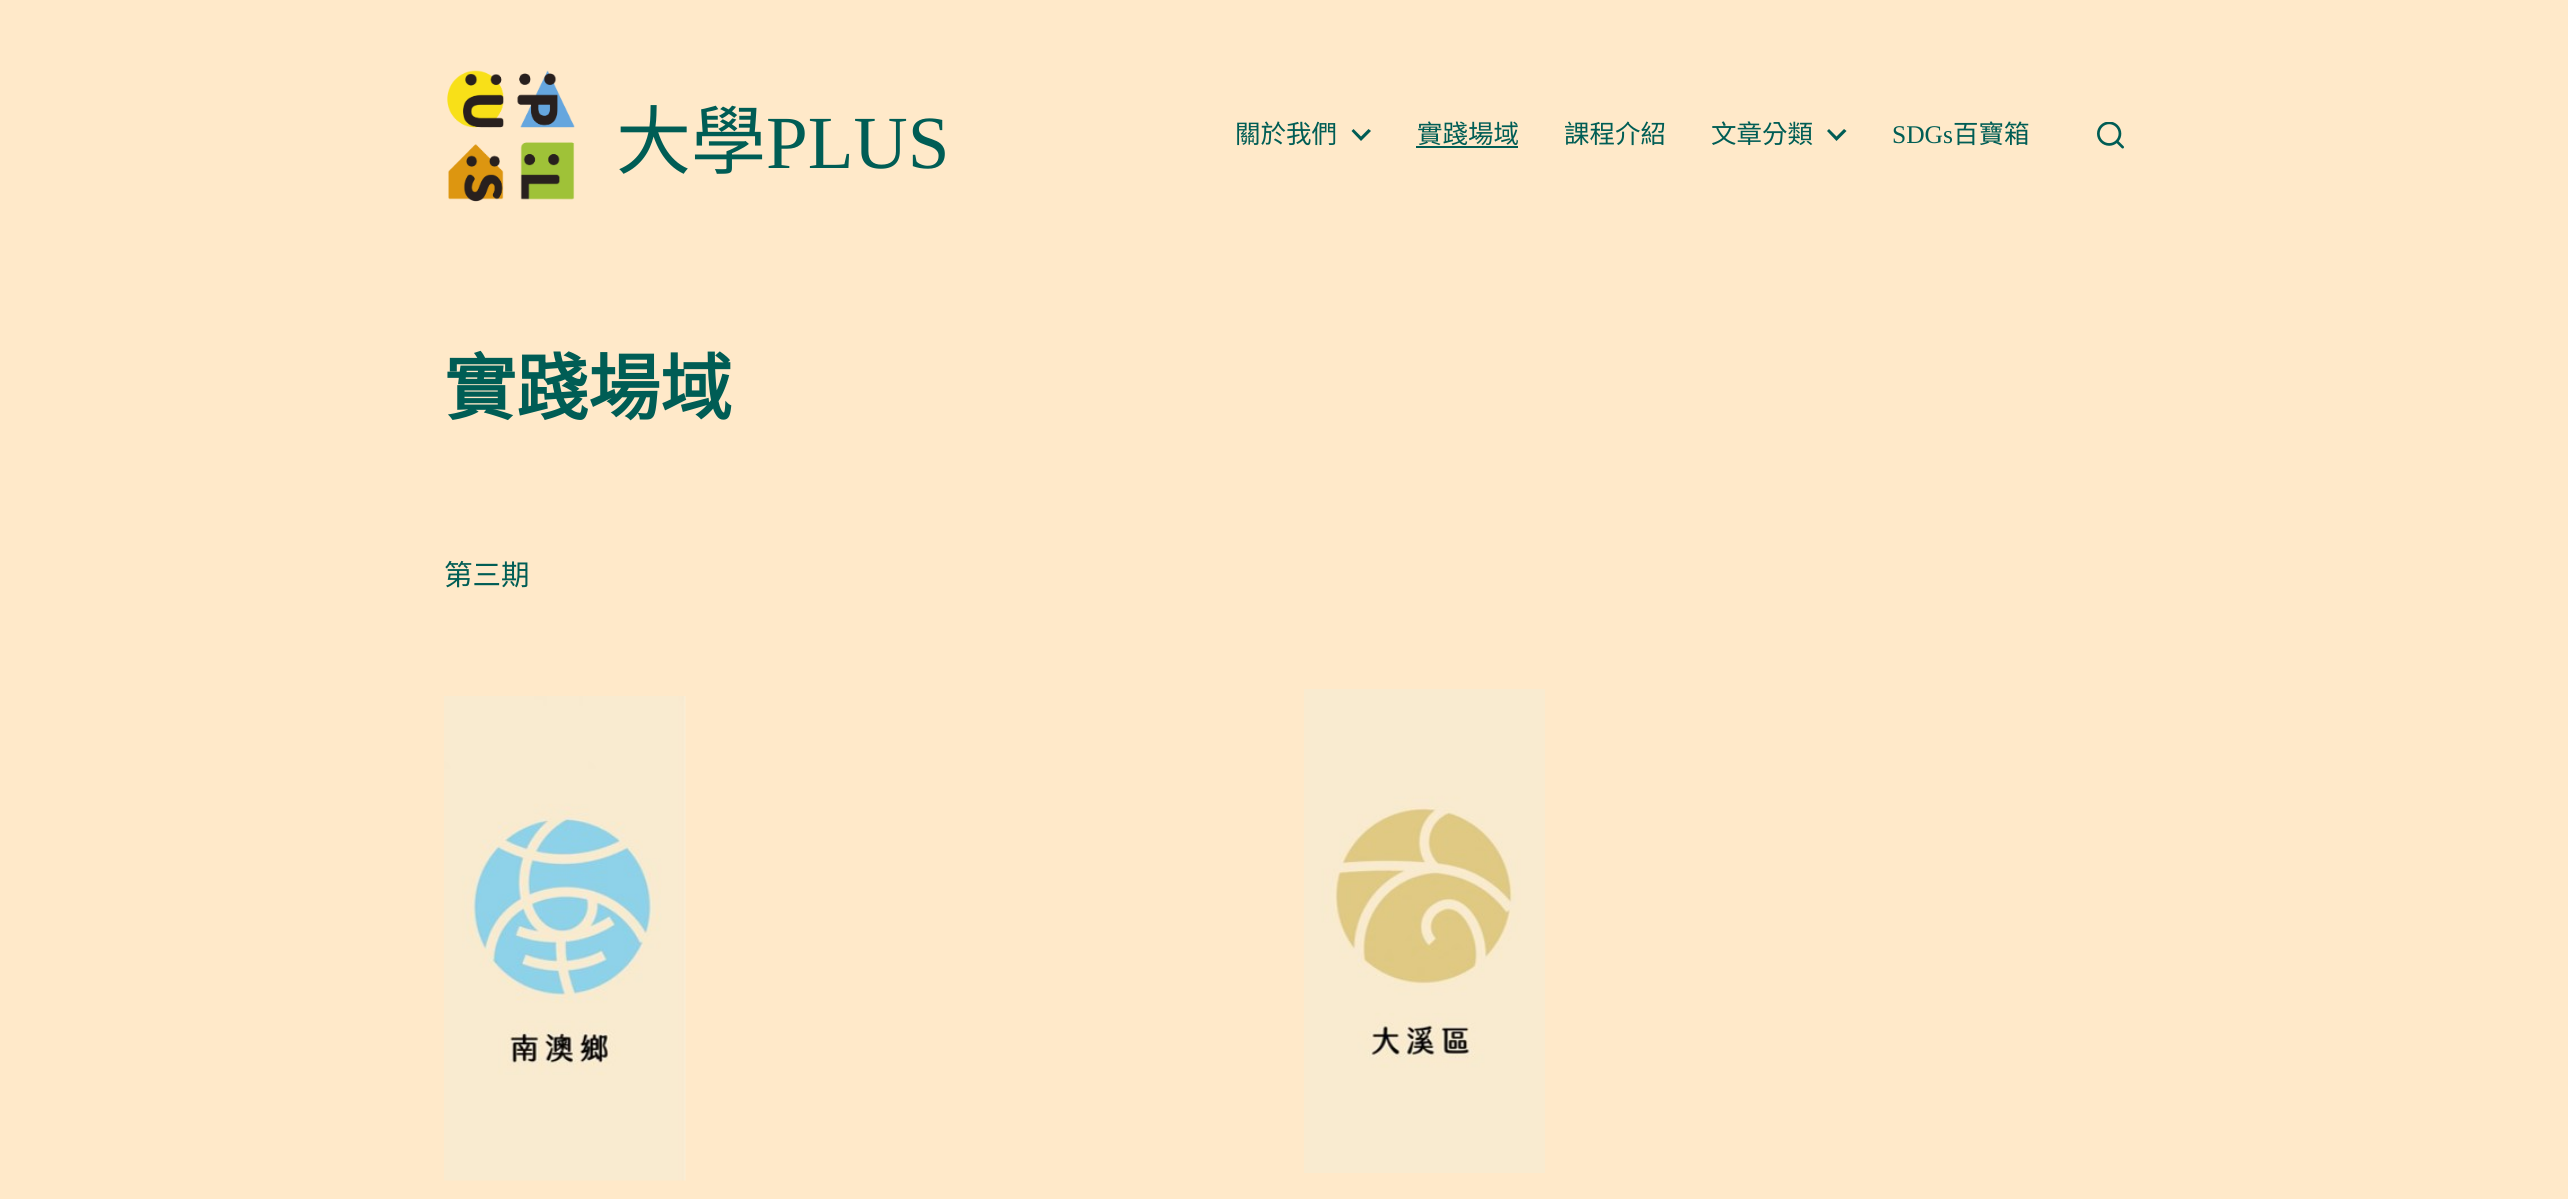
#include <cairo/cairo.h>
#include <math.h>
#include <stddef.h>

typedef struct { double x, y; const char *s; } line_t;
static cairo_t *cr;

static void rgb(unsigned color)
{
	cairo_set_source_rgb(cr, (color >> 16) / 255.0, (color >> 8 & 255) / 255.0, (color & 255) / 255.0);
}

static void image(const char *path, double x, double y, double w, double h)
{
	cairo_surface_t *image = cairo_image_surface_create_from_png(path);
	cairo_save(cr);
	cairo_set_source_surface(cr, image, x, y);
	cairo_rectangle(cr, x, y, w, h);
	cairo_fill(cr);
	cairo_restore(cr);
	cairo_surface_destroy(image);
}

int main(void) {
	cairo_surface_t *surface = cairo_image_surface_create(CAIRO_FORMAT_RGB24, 2568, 1199);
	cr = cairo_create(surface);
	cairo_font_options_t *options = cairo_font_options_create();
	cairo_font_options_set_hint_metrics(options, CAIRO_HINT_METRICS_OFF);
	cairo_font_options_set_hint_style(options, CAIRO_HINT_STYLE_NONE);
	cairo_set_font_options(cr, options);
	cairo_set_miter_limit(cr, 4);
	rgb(0xffe9c9);
	cairo_paint(cr);
	image("img/1.png", 447, 70, 128, 132);
	rgb(0x005d55);
	cairo_set_fill_rule(cr, CAIRO_FILL_RULE_EVEN_ODD);
	cairo_new_path(cr);
	cairo_move_to(cr, 1361, 136.5);
	cairo_line_to(cr, 1368.5, 129);
	cairo_line_to(cr, 1371, 131);
	cairo_line_to(cr, 1361, 141);
	cairo_line_to(cr, 1351.5, 131);
	cairo_line_to(cr, 1353.5, 129);
	cairo_close_path(cr);
	cairo_fill(cr);
	cairo_rectangle(cr, 1416, 146, 102, 2);
	cairo_fill(cr);
	cairo_new_path(cr);
	cairo_move_to(cr, 1836.5, 136.5);
	cairo_line_to(cr, 1844, 129);
	cairo_line_to(cr, 1846.5, 131);
	cairo_line_to(cr, 1836.5, 141);
	cairo_line_to(cr, 1827, 131);
	cairo_line_to(cr, 1829, 129);
	cairo_close_path(cr);
	cairo_fill(cr);
	image("img/2.png", 2097, 122, 27, 27);
	image("img/3.png", 444, 696, 242, 485);
	image("img/4.png", 1304, 689, 241, 484);
	cairo_select_font_face(cr, "Noto Sans CJK TC", CAIRO_FONT_SLANT_NORMAL, CAIRO_FONT_WEIGHT_NORMAL);
	cairo_set_font_size(cr, 75);
	cairo_move_to(cr, 616, 168);
	cairo_show_text(cr, "大學");
	cairo_select_font_face(cr, "Liberation Serif", CAIRO_FONT_SLANT_NORMAL, CAIRO_FONT_WEIGHT_NORMAL);
	cairo_move_to(cr, 766, 168);
	cairo_show_text(cr, "PLUS");
	cairo_select_font_face(cr, "Noto Sans CJK TC", CAIRO_FONT_SLANT_NORMAL, CAIRO_FONT_WEIGHT_NORMAL);
	cairo_set_font_size(cr, 25.5);
	{
		static const line_t items[] = {
			{1235, 143, "關於我們"},
			{1417, 143, "實踐場域"},
			{1564, 143, "課程介紹"},
			{1711, 143, "文章分類"},
		};
		for (size_t i = 0; i < sizeof items / sizeof *items; i++) {
			cairo_move_to(cr, items[i].x, items[i].y);
			cairo_show_text(cr, items[i].s);
		}
	}
	cairo_select_font_face(cr, "Liberation Serif", CAIRO_FONT_SLANT_NORMAL, CAIRO_FONT_WEIGHT_NORMAL);
	cairo_move_to(cr, 1892, 143);
	cairo_show_text(cr, "SDGs");
	cairo_select_font_face(cr, "Noto Sans CJK TC", CAIRO_FONT_SLANT_NORMAL, CAIRO_FONT_WEIGHT_NORMAL);
	cairo_move_to(cr, 1953, 143);
	cairo_show_text(cr, "百寶箱");
	cairo_select_font_face(cr, "Noto Sans CJK TC", CAIRO_FONT_SLANT_NORMAL, CAIRO_FONT_WEIGHT_BOLD);
	cairo_set_font_size(cr, 72);
	cairo_move_to(cr, 444, 414);
	cairo_show_text(cr, "實踐場域");
	cairo_select_font_face(cr, "Noto Sans CJK TC", CAIRO_FONT_SLANT_NORMAL, CAIRO_FONT_WEIGHT_NORMAL);
	cairo_set_font_size(cr, 28.5);
	cairo_move_to(cr, 444, 585);
	cairo_show_text(cr, "第三期");
	cairo_surface_write_to_png(surface, "page.png");
	cairo_font_options_destroy(options);
	cairo_destroy(cr);
	cairo_surface_destroy(surface);
	return 0;
}
